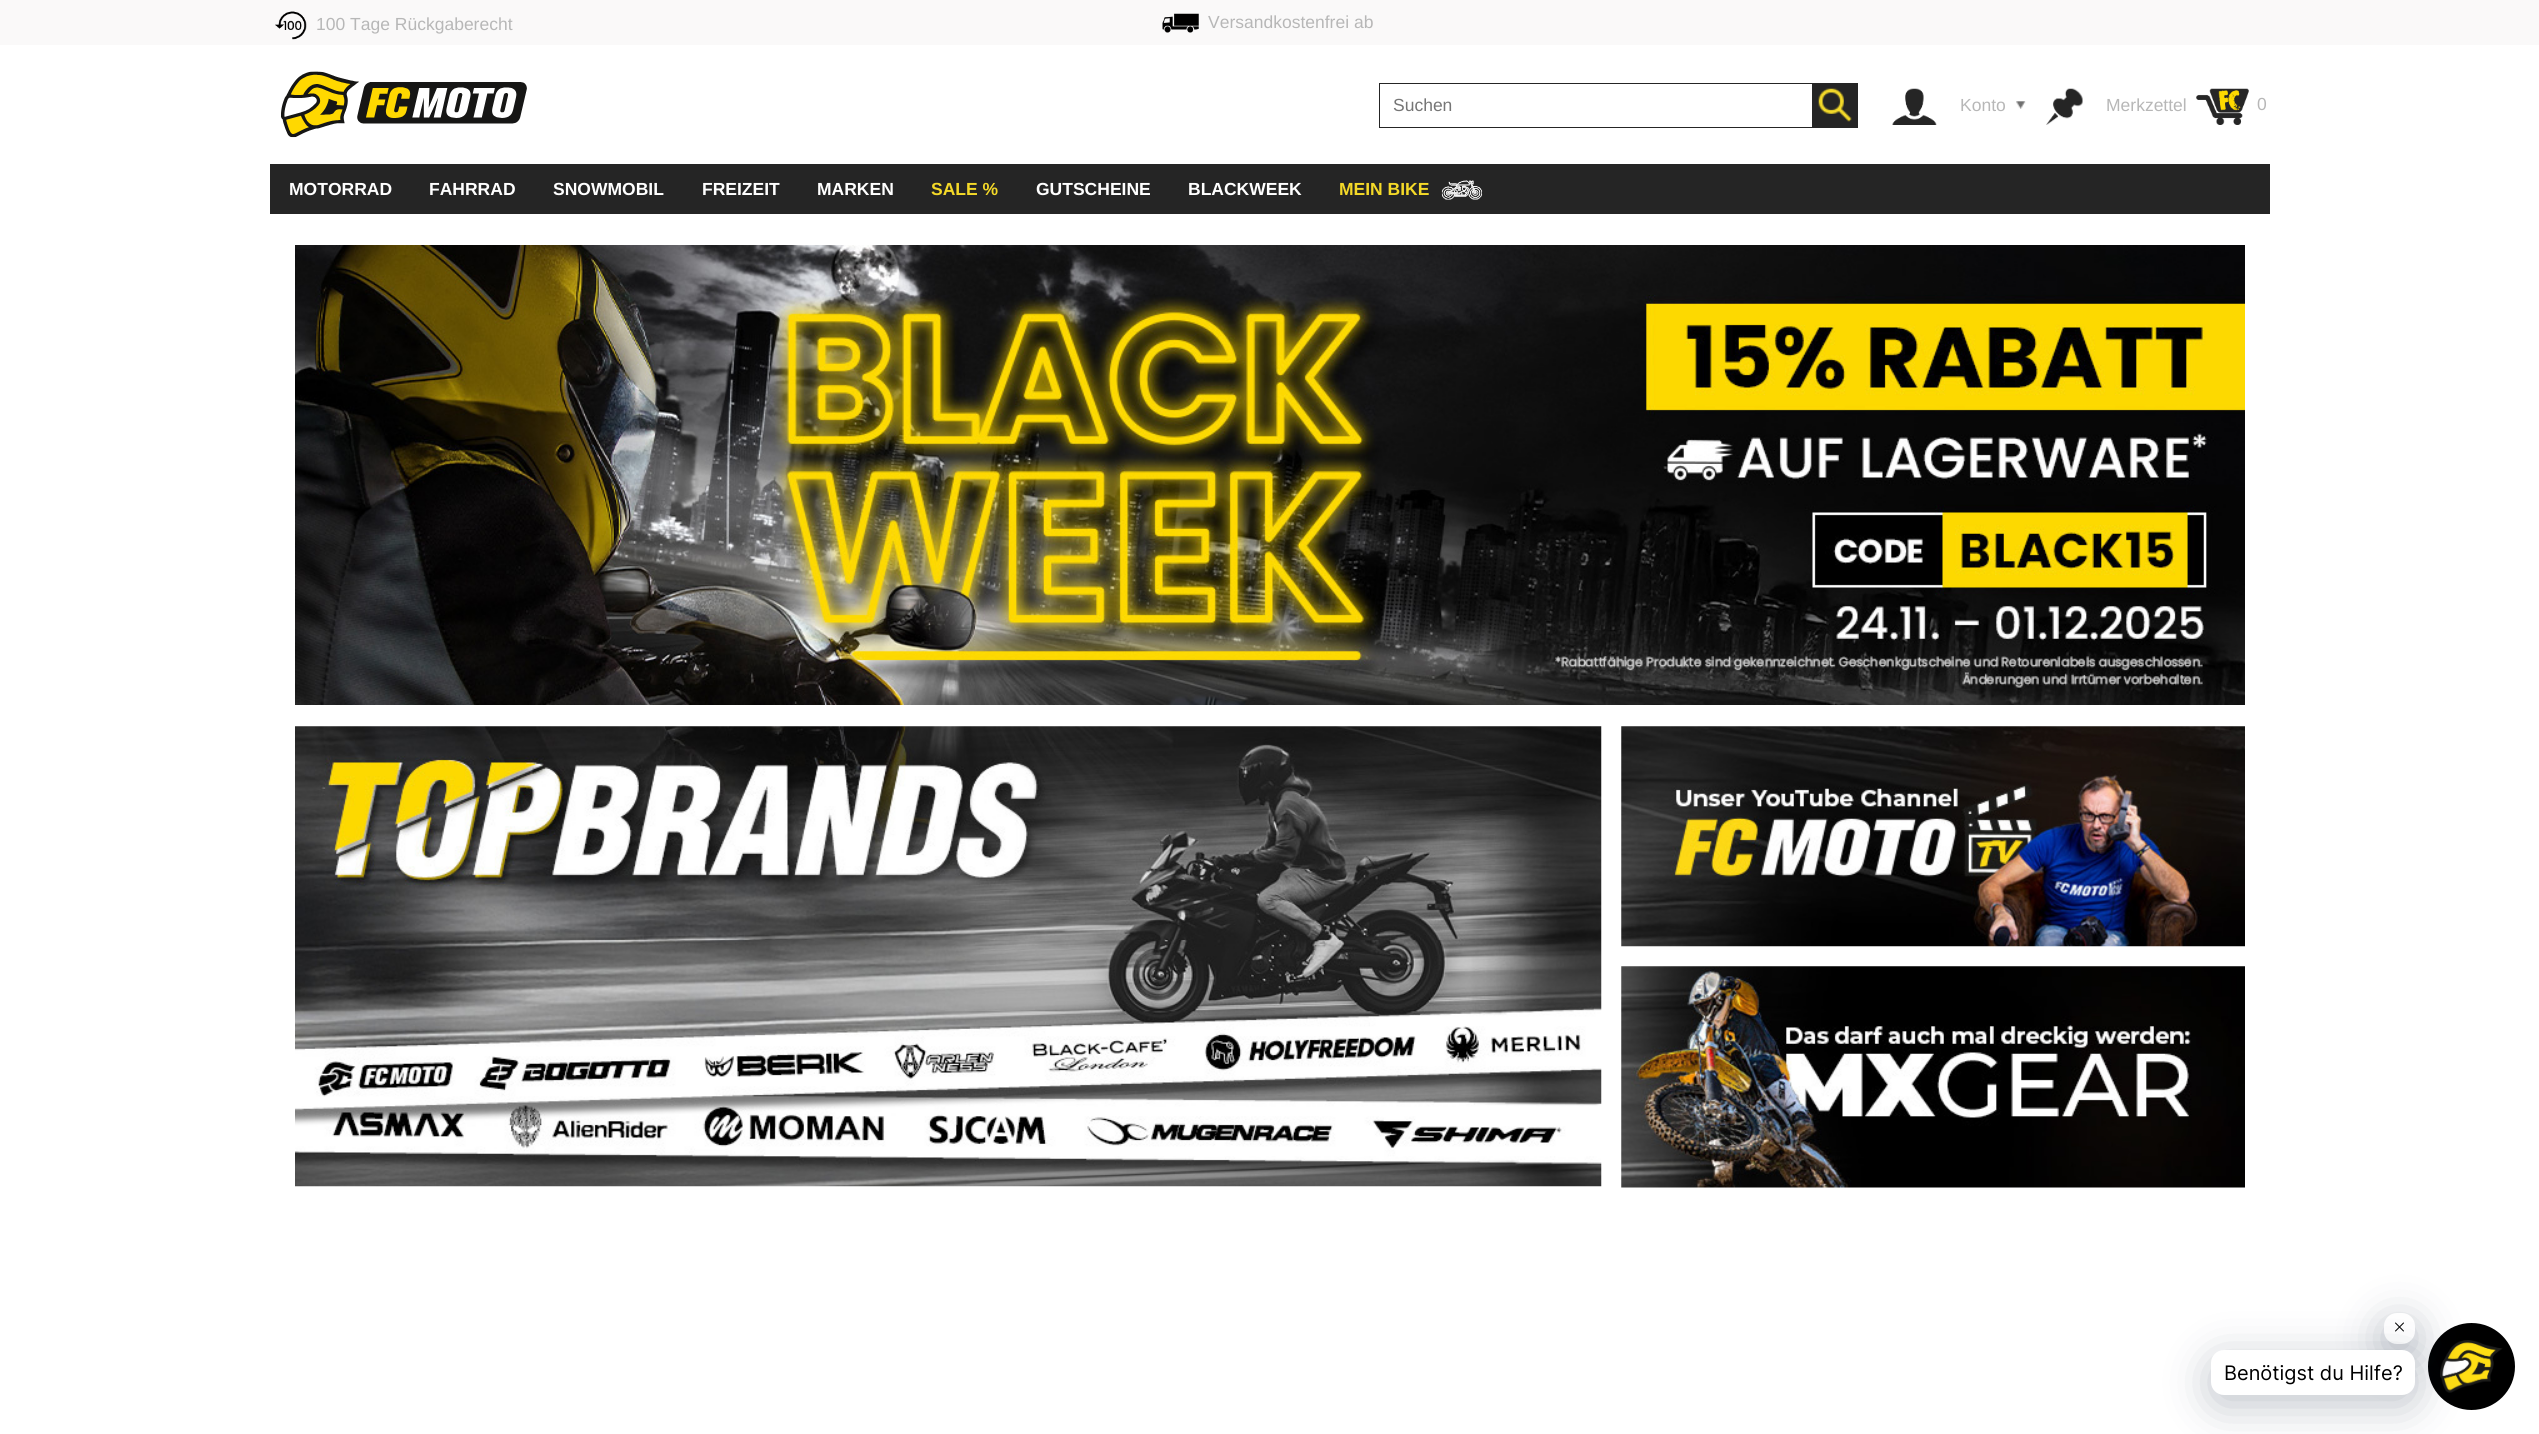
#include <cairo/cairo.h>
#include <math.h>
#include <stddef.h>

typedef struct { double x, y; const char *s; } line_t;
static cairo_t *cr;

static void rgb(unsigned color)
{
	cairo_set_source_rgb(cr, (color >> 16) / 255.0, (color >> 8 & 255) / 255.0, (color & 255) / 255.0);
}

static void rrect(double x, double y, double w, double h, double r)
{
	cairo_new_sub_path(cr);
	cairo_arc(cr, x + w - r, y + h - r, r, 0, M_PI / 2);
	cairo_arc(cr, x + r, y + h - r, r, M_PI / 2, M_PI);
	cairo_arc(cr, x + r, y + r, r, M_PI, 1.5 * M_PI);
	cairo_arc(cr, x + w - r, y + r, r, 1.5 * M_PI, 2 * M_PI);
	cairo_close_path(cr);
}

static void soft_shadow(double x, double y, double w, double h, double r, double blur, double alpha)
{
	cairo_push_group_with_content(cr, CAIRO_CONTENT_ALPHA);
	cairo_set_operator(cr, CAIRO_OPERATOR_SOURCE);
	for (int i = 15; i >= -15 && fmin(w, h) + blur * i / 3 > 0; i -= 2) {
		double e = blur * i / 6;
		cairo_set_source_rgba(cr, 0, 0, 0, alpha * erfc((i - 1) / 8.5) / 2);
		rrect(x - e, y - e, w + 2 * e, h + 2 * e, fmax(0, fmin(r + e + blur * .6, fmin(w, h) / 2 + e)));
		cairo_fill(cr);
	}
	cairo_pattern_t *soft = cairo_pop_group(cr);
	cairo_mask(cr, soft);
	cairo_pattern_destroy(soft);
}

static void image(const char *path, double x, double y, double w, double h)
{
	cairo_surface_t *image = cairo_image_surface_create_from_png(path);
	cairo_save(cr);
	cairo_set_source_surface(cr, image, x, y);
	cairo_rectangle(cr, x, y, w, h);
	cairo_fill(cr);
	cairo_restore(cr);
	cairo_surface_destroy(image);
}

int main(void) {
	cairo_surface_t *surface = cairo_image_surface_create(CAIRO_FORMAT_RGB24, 2539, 1434);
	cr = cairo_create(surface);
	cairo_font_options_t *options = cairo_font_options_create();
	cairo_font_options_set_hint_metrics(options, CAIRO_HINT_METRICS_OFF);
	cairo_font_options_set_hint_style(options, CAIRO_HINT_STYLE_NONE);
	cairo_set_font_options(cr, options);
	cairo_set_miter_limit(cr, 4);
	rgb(0xffffff);
	cairo_paint(cr);
	rgb(0xfaf9f9);
	cairo_rectangle(cr, 0, 0, 2539, 45);
	cairo_fill(cr);
	image("img/1.png", 275, 11, 32, 29);
	image("img/2.png", 1162, 13, 37, 20);
	image("img/3.png", 281, 71, 246, 67);
	cairo_rectangle(cr, 1379.5, 83.5, 433, 44);
	rgb(0x252525);
	cairo_set_line_width(cr, 1);
	cairo_stroke(cr);
	cairo_rectangle(cr, 1813, 83, 45, 45);
	cairo_fill(cr);
	image("img/4.png", 1818, 88, 34, 34);
	image("img/5.png", 1892, 88, 45, 37);
	image("img/6.png", 2016, 101, 10, 8);
	image("img/7.png", 2046, 88, 37, 37);
	image("img/8.png", 2196, 88, 53, 37);
	cairo_rectangle(cr, 270, 164, 2000, 50);
	cairo_fill(cr);
	image("img/9.png", 1441, 180, 42, 20);
	image("img/10.png", 295, 245, 1950, 460);
	image("img/11.png", 295, 726, 1307, 461);
	image("img/12.png", 1621, 726, 624, 221);
	image("img/13.png", 1621, 966, 624, 222);
	rgb(0x000000);
	cairo_arc(cr, 2471.5, 1366.5, 43.5, 0, 2 * M_PI);
	cairo_fill(cr);
	image("img/14.png", 2440, 1340, 63, 53);
	rgb(0x00122e);
	soft_shadow(2384, 1323, 31, 31, 13, 22.5, 0.25);
	rgb(0xffffff);
	rrect(2384, 1313, 31, 31, 13);
	cairo_fill(cr);
	cairo_new_path(cr);
	cairo_move_to(cr, 2395.5, 1331);
	cairo_line_to(cr, 2403.5, 1323);
	cairo_move_to(cr, 2395.5, 1323);
	cairo_line_to(cr, 2403.5, 1331);
	rgb(0x000000);
	cairo_set_line_cap(cr, CAIRO_LINE_CAP_ROUND);
	cairo_set_line_join(cr, CAIRO_LINE_JOIN_ROUND);
	cairo_stroke(cr);
	rgb(0x00122e);
	soft_shadow(2211, 1360, 204, 45, 13, 22.5, 0.25);
	rgb(0xffffff);
	rrect(2211, 1350, 204, 45, 13);
	cairo_fill(cr);
	cairo_select_font_face(cr, "Liberation Sans", CAIRO_FONT_SLANT_NORMAL, CAIRO_FONT_WEIGHT_NORMAL);
	cairo_set_font_size(cr, 17.5);
	rgb(0xb7b7b7);
	cairo_move_to(cr, 316, 30);
	cairo_show_text(cr, "100 Tage Rückgaberecht");
	cairo_move_to(cr, 1208, 28);
	cairo_show_text(cr, "Versandkostenfrei ab");
	rgb(0x757575);
	cairo_move_to(cr, 1393, 111);
	cairo_show_text(cr, "Suchen");
	rgb(0xb7b7b7);
	{
		static const line_t items[] = {
			{1960, 111, "Konto"},
			{2106, 111, "Merkzettel"},
			{2257, 110, "0"},
		};
		for (size_t i = 0; i < sizeof items / sizeof *items; i++) {
			cairo_move_to(cr, items[i].x, items[i].y);
			cairo_show_text(cr, items[i].s);
		}
	}
	cairo_select_font_face(cr, "Liberation Sans", CAIRO_FONT_SLANT_NORMAL, CAIRO_FONT_WEIGHT_BOLD);
	rgb(0xffffff);
	{
		static const line_t items[] = {
			{289, 195, "MOTORRAD"},
			{429, 195, "FAHRRAD"},
			{553, 195, "SNOWMOBIL"},
			{702, 195, "FREIZEIT"},
			{817, 195, "MARKEN"},
		};
		for (size_t i = 0; i < sizeof items / sizeof *items; i++) {
			cairo_move_to(cr, items[i].x, items[i].y);
			cairo_show_text(cr, items[i].s);
		}
	}
	rgb(0xf4d928);
	cairo_move_to(cr, 931, 195);
	cairo_show_text(cr, "SALE %");
	rgb(0xffffff);
	cairo_move_to(cr, 1036, 195);
	cairo_show_text(cr, "GUTSCHEINE");
	cairo_move_to(cr, 1188, 195);
	cairo_show_text(cr, "BLACKWEEK");
	rgb(0xf4d928);
	cairo_move_to(cr, 1339, 195);
	cairo_show_text(cr, "MEIN BIKE");
	cairo_select_font_face(cr, "Inter", CAIRO_FONT_SLANT_NORMAL, CAIRO_FONT_WEIGHT_NORMAL);
	cairo_set_font_size(cr, 20);
	rgb(0x000000);
	cairo_move_to(cr, 2224, 1380);
	cairo_show_text(cr, "Benötigst du Hilfe?");
	cairo_surface_write_to_png(surface, "page.png");
	cairo_font_options_destroy(options);
	cairo_destroy(cr);
	cairo_surface_destroy(surface);
	return 0;
}
